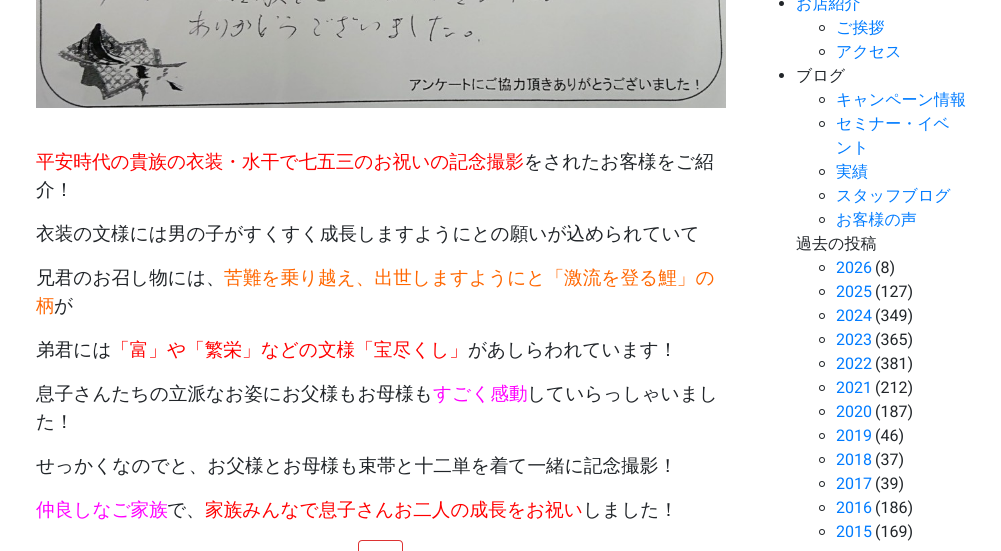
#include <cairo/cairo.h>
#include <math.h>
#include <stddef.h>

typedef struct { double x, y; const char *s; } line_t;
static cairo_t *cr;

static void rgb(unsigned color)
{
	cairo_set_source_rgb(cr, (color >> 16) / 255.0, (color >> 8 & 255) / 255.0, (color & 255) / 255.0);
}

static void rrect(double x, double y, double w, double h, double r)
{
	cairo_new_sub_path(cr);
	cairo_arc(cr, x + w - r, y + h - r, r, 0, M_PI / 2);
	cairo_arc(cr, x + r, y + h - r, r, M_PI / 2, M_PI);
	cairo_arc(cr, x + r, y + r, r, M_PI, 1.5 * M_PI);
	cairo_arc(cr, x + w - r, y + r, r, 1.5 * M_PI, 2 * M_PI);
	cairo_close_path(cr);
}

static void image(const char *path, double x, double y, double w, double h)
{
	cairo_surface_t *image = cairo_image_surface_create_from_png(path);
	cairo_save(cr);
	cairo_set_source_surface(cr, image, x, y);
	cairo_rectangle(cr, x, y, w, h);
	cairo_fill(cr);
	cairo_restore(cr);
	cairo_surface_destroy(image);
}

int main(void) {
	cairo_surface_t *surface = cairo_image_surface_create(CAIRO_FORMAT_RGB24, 1001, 551);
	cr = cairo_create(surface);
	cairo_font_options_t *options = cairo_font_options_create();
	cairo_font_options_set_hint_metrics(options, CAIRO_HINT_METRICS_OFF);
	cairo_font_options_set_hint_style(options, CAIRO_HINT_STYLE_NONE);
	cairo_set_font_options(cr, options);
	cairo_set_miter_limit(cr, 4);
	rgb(0xffffff);
	cairo_paint(cr);
	image("img/1.png", 36, 0, 690, 108);
	rrect(358.5, 540.5, 44, 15, 3.5);
	rgb(0xdd3333);
	cairo_set_line_width(cr, 1);
	cairo_stroke(cr);
	rgb(0x212529);
	cairo_arc(cr, 781.5, 3.5, 2.5, 0, 2 * M_PI);
	cairo_fill(cr);
	cairo_arc(cr, 822, 28, 2.5, 0, 2 * M_PI);
	cairo_stroke(cr);
	cairo_arc(cr, 822, 52, 2.5, 0, 2 * M_PI);
	cairo_stroke(cr);
	cairo_arc(cr, 781.5, 75.5, 2.5, 0, 2 * M_PI);
	cairo_fill(cr);
	cairo_arc(cr, 822, 100, 2.5, 0, 2 * M_PI);
	cairo_stroke(cr);
	cairo_arc(cr, 822, 124, 2.5, 0, 2 * M_PI);
	cairo_stroke(cr);
	cairo_arc(cr, 822, 172, 2.5, 0, 2 * M_PI);
	cairo_stroke(cr);
	cairo_arc(cr, 822, 196, 2.5, 0, 2 * M_PI);
	cairo_stroke(cr);
	cairo_arc(cr, 822, 220, 2.5, 0, 2 * M_PI);
	cairo_stroke(cr);
	cairo_arc(cr, 822, 268, 2.5, 0, 2 * M_PI);
	cairo_stroke(cr);
	cairo_arc(cr, 822, 292, 2.5, 0, 2 * M_PI);
	cairo_stroke(cr);
	cairo_arc(cr, 822, 316, 2.5, 0, 2 * M_PI);
	cairo_stroke(cr);
	cairo_arc(cr, 822, 340, 2.5, 0, 2 * M_PI);
	cairo_stroke(cr);
	cairo_arc(cr, 822, 364, 2.5, 0, 2 * M_PI);
	cairo_stroke(cr);
	cairo_arc(cr, 822, 388, 2.5, 0, 2 * M_PI);
	cairo_stroke(cr);
	cairo_arc(cr, 822, 412, 2.5, 0, 2 * M_PI);
	cairo_stroke(cr);
	cairo_arc(cr, 822, 436, 2.5, 0, 2 * M_PI);
	cairo_stroke(cr);
	cairo_arc(cr, 822, 460, 2.5, 0, 2 * M_PI);
	cairo_stroke(cr);
	cairo_arc(cr, 822, 484, 2.5, 0, 2 * M_PI);
	cairo_stroke(cr);
	cairo_arc(cr, 822, 508, 2.5, 0, 2 * M_PI);
	cairo_stroke(cr);
	cairo_arc(cr, 822, 532, 2.5, 0, 2 * M_PI);
	cairo_stroke(cr);
	cairo_select_font_face(cr, "WenQuanYi Zen Hei Medium", CAIRO_FONT_SLANT_NORMAL, CAIRO_FONT_WEIGHT_NORMAL);
	cairo_set_font_size(cr, 18.65);
	rgb(0xff0000);
	cairo_move_to(cr, 36, 168);
	cairo_show_text(cr, "平安時代の貴族の衣装・水干で七五三のお祝いの記念撮影");
	rgb(0x212529);
	{
		static const line_t items[] = {
			{524, 168, "をされたお客様をご紹"},
			{36, 196, "介！"},
			{36, 240, "衣装の文様には男の子がすくすく成長しますようにとの願いが込められていて"},
			{36, 284, "兄君のお召し物には、"},
		};
		for (size_t i = 0; i < sizeof items / sizeof *items; i++) {
			cairo_move_to(cr, items[i].x, items[i].y);
			cairo_show_text(cr, items[i].s);
		}
	}
	rgb(0xff6600);
	cairo_move_to(cr, 224, 284);
	cairo_show_text(cr, "苦難を乗り越え、出世しますようにと「激流を登る鯉」の");
	cairo_move_to(cr, 36, 312);
	cairo_show_text(cr, "柄");
	rgb(0x212529);
	cairo_move_to(cr, 54, 312);
	cairo_show_text(cr, "が");
	cairo_move_to(cr, 36, 356);
	cairo_show_text(cr, "弟君には");
	rgb(0xff0000);
	cairo_move_to(cr, 111, 356);
	cairo_show_text(cr, "「富」や「繁栄」などの文様「宝尽くし」");
	rgb(0x212529);
	cairo_move_to(cr, 468, 356);
	cairo_show_text(cr, "があしらわれています！");
	cairo_move_to(cr, 36, 400);
	cairo_show_text(cr, "息子さんたちの立派なお姿にお父様もお母様も");
	rgb(0xff00ff);
	cairo_move_to(cr, 433, 400);
	cairo_show_text(cr, "すごく感動");
	rgb(0x212529);
	{
		static const line_t items[] = {
			{527, 400, "していらっしゃいまし"},
			{36, 428, "た！"},
			{36, 472, "せっかくなのでと、お父様とお母様も束帯と十二単を着て一緒に記念撮影！"},
		};
		for (size_t i = 0; i < sizeof items / sizeof *items; i++) {
			cairo_move_to(cr, items[i].x, items[i].y);
			cairo_show_text(cr, items[i].s);
		}
	}
	rgb(0xff00ff);
	cairo_move_to(cr, 36, 516);
	cairo_show_text(cr, "仲良しなご家族");
	rgb(0x212529);
	cairo_move_to(cr, 167, 516);
	cairo_show_text(cr, "で、");
	rgb(0xff0000);
	cairo_move_to(cr, 205, 516);
	cairo_show_text(cr, "家族みんなで息子さんお二人の成長をお祝い");
	rgb(0x212529);
	cairo_move_to(cr, 583, 516);
	cairo_show_text(cr, "しました！");
	cairo_set_font_size(cr, 16);
	rgb(0x007bff);
	{
		static const line_t items[] = {
			{796, 9, "お店紹介"},
			{836, 33, "ご挨拶"},
			{836, 57, "アクセス"},
		};
		for (size_t i = 0; i < sizeof items / sizeof *items; i++) {
			cairo_move_to(cr, items[i].x, items[i].y);
			cairo_show_text(cr, items[i].s);
		}
	}
	rgb(0x212529);
	cairo_move_to(cr, 796, 81);
	cairo_show_text(cr, "ブログ");
	rgb(0x007bff);
	{
		static const line_t items[] = {
			{836, 105, "キャンペーン情報"},
			{836, 129, "セミナー・イベ"},
			{836, 153, "ント"},
			{836, 177, "実績"},
			{836, 201, "スタッフブログ"},
			{836, 225, "お客様の声"},
		};
		for (size_t i = 0; i < sizeof items / sizeof *items; i++) {
			cairo_move_to(cr, items[i].x, items[i].y);
			cairo_show_text(cr, items[i].s);
		}
	}
	rgb(0x212529);
	cairo_move_to(cr, 796, 249);
	cairo_show_text(cr, "過去の投稿");
	cairo_select_font_face(cr, "Roboto", CAIRO_FONT_SLANT_NORMAL, CAIRO_FONT_WEIGHT_NORMAL);
	rgb(0x007bff);
	cairo_move_to(cr, 836, 273);
	cairo_show_text(cr, "2026");
	rgb(0x212529);
	cairo_move_to(cr, 875, 273);
	cairo_show_text(cr, "(8)");
	rgb(0x007bff);
	cairo_move_to(cr, 836, 297);
	cairo_show_text(cr, "2025");
	rgb(0x212529);
	cairo_move_to(cr, 875, 297);
	cairo_show_text(cr, "(127)");
	rgb(0x007bff);
	cairo_move_to(cr, 836, 321);
	cairo_show_text(cr, "2024");
	rgb(0x212529);
	cairo_move_to(cr, 875, 321);
	cairo_show_text(cr, "(349)");
	rgb(0x007bff);
	cairo_move_to(cr, 836, 345);
	cairo_show_text(cr, "2023");
	rgb(0x212529);
	cairo_move_to(cr, 875, 345);
	cairo_show_text(cr, "(365)");
	rgb(0x007bff);
	cairo_move_to(cr, 836, 369);
	cairo_show_text(cr, "2022");
	rgb(0x212529);
	cairo_move_to(cr, 875, 369);
	cairo_show_text(cr, "(381)");
	rgb(0x007bff);
	cairo_move_to(cr, 836, 393);
	cairo_show_text(cr, "2021");
	rgb(0x212529);
	cairo_move_to(cr, 875, 393);
	cairo_show_text(cr, "(212)");
	rgb(0x007bff);
	cairo_move_to(cr, 836, 417);
	cairo_show_text(cr, "2020");
	rgb(0x212529);
	cairo_move_to(cr, 875, 417);
	cairo_show_text(cr, "(187)");
	rgb(0x007bff);
	cairo_move_to(cr, 836, 441);
	cairo_show_text(cr, "2019");
	rgb(0x212529);
	cairo_move_to(cr, 875, 441);
	cairo_show_text(cr, "(46)");
	rgb(0x007bff);
	cairo_move_to(cr, 836, 465);
	cairo_show_text(cr, "2018");
	rgb(0x212529);
	cairo_move_to(cr, 875, 465);
	cairo_show_text(cr, "(37)");
	rgb(0x007bff);
	cairo_move_to(cr, 836, 489);
	cairo_show_text(cr, "2017");
	rgb(0x212529);
	cairo_move_to(cr, 875, 489);
	cairo_show_text(cr, "(39)");
	rgb(0x007bff);
	cairo_move_to(cr, 836, 513);
	cairo_show_text(cr, "2016");
	rgb(0x212529);
	cairo_move_to(cr, 875, 513);
	cairo_show_text(cr, "(186)");
	rgb(0x007bff);
	cairo_move_to(cr, 836, 537);
	cairo_show_text(cr, "2015");
	rgb(0x212529);
	cairo_move_to(cr, 875, 537);
	cairo_show_text(cr, "(169)");
	cairo_surface_write_to_png(surface, "page.png");
	cairo_font_options_destroy(options);
	cairo_destroy(cr);
	cairo_surface_destroy(surface);
	return 0;
}
